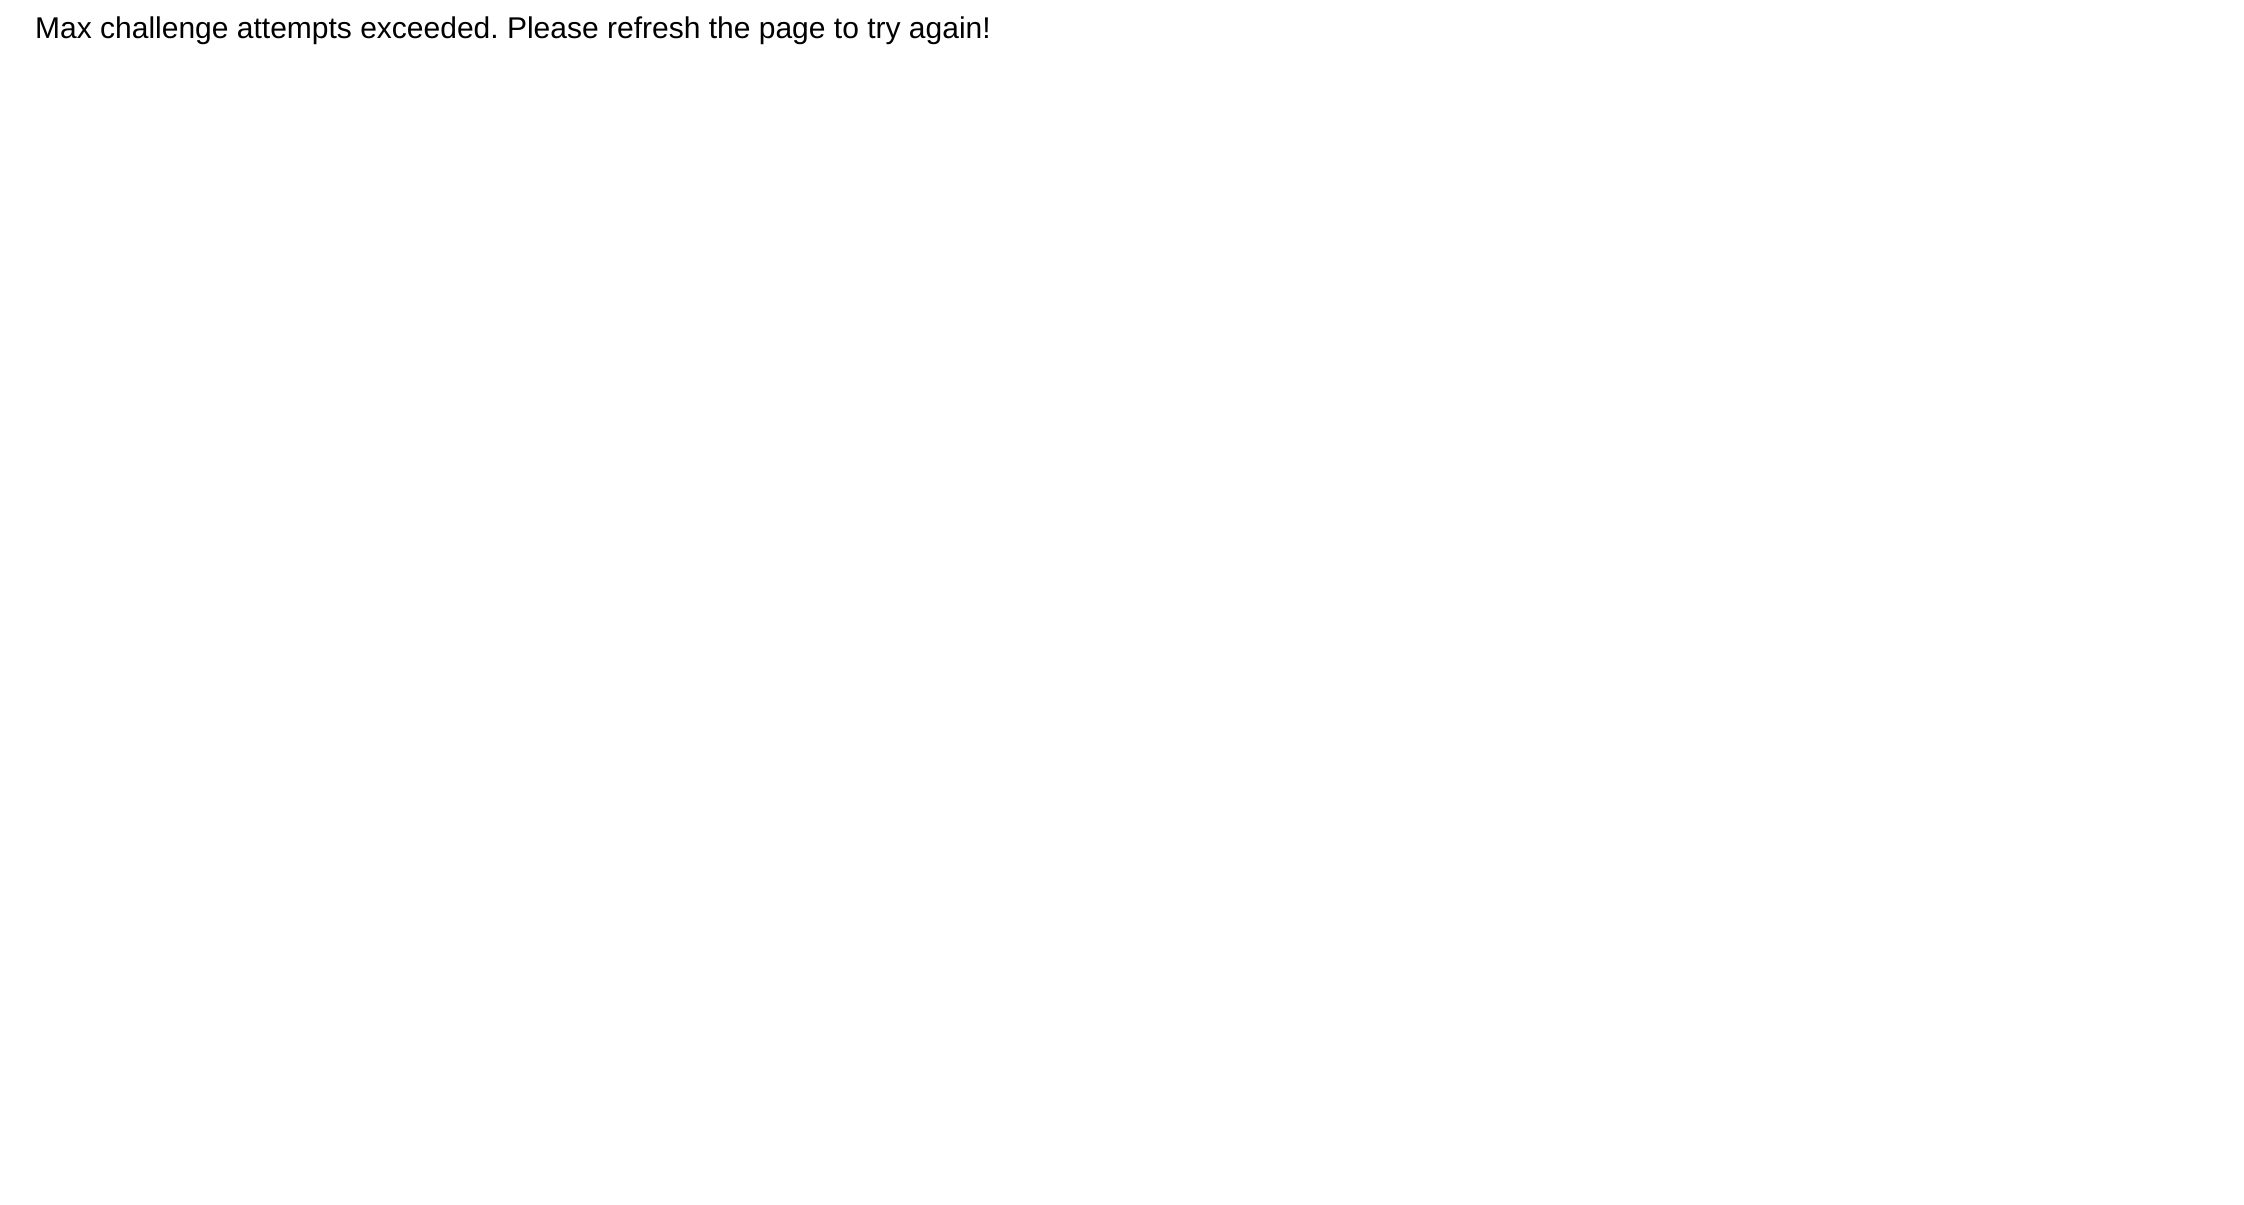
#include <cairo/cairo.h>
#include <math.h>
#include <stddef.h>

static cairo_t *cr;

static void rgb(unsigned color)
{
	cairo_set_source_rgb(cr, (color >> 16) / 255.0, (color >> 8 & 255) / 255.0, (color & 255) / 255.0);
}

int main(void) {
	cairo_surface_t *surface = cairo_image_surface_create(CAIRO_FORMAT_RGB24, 2244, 1205);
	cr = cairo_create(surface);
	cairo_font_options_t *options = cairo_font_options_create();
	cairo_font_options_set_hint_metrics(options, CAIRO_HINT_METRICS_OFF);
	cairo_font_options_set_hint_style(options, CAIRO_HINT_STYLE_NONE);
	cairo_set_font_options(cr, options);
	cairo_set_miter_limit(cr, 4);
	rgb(0xffffff);
	cairo_paint(cr);
	cairo_select_font_face(cr, "Liberation Sans", CAIRO_FONT_SLANT_NORMAL, CAIRO_FONT_WEIGHT_NORMAL);
	cairo_set_font_size(cr, 30);
	rgb(0x000000);
	cairo_move_to(cr, 35, 38);
	cairo_show_text(cr, "Max challenge attempts exceeded. Please refresh the page to try again!");
	cairo_surface_write_to_png(surface, "page.png");
	cairo_font_options_destroy(options);
	cairo_destroy(cr);
	cairo_surface_destroy(surface);
	return 0;
}
